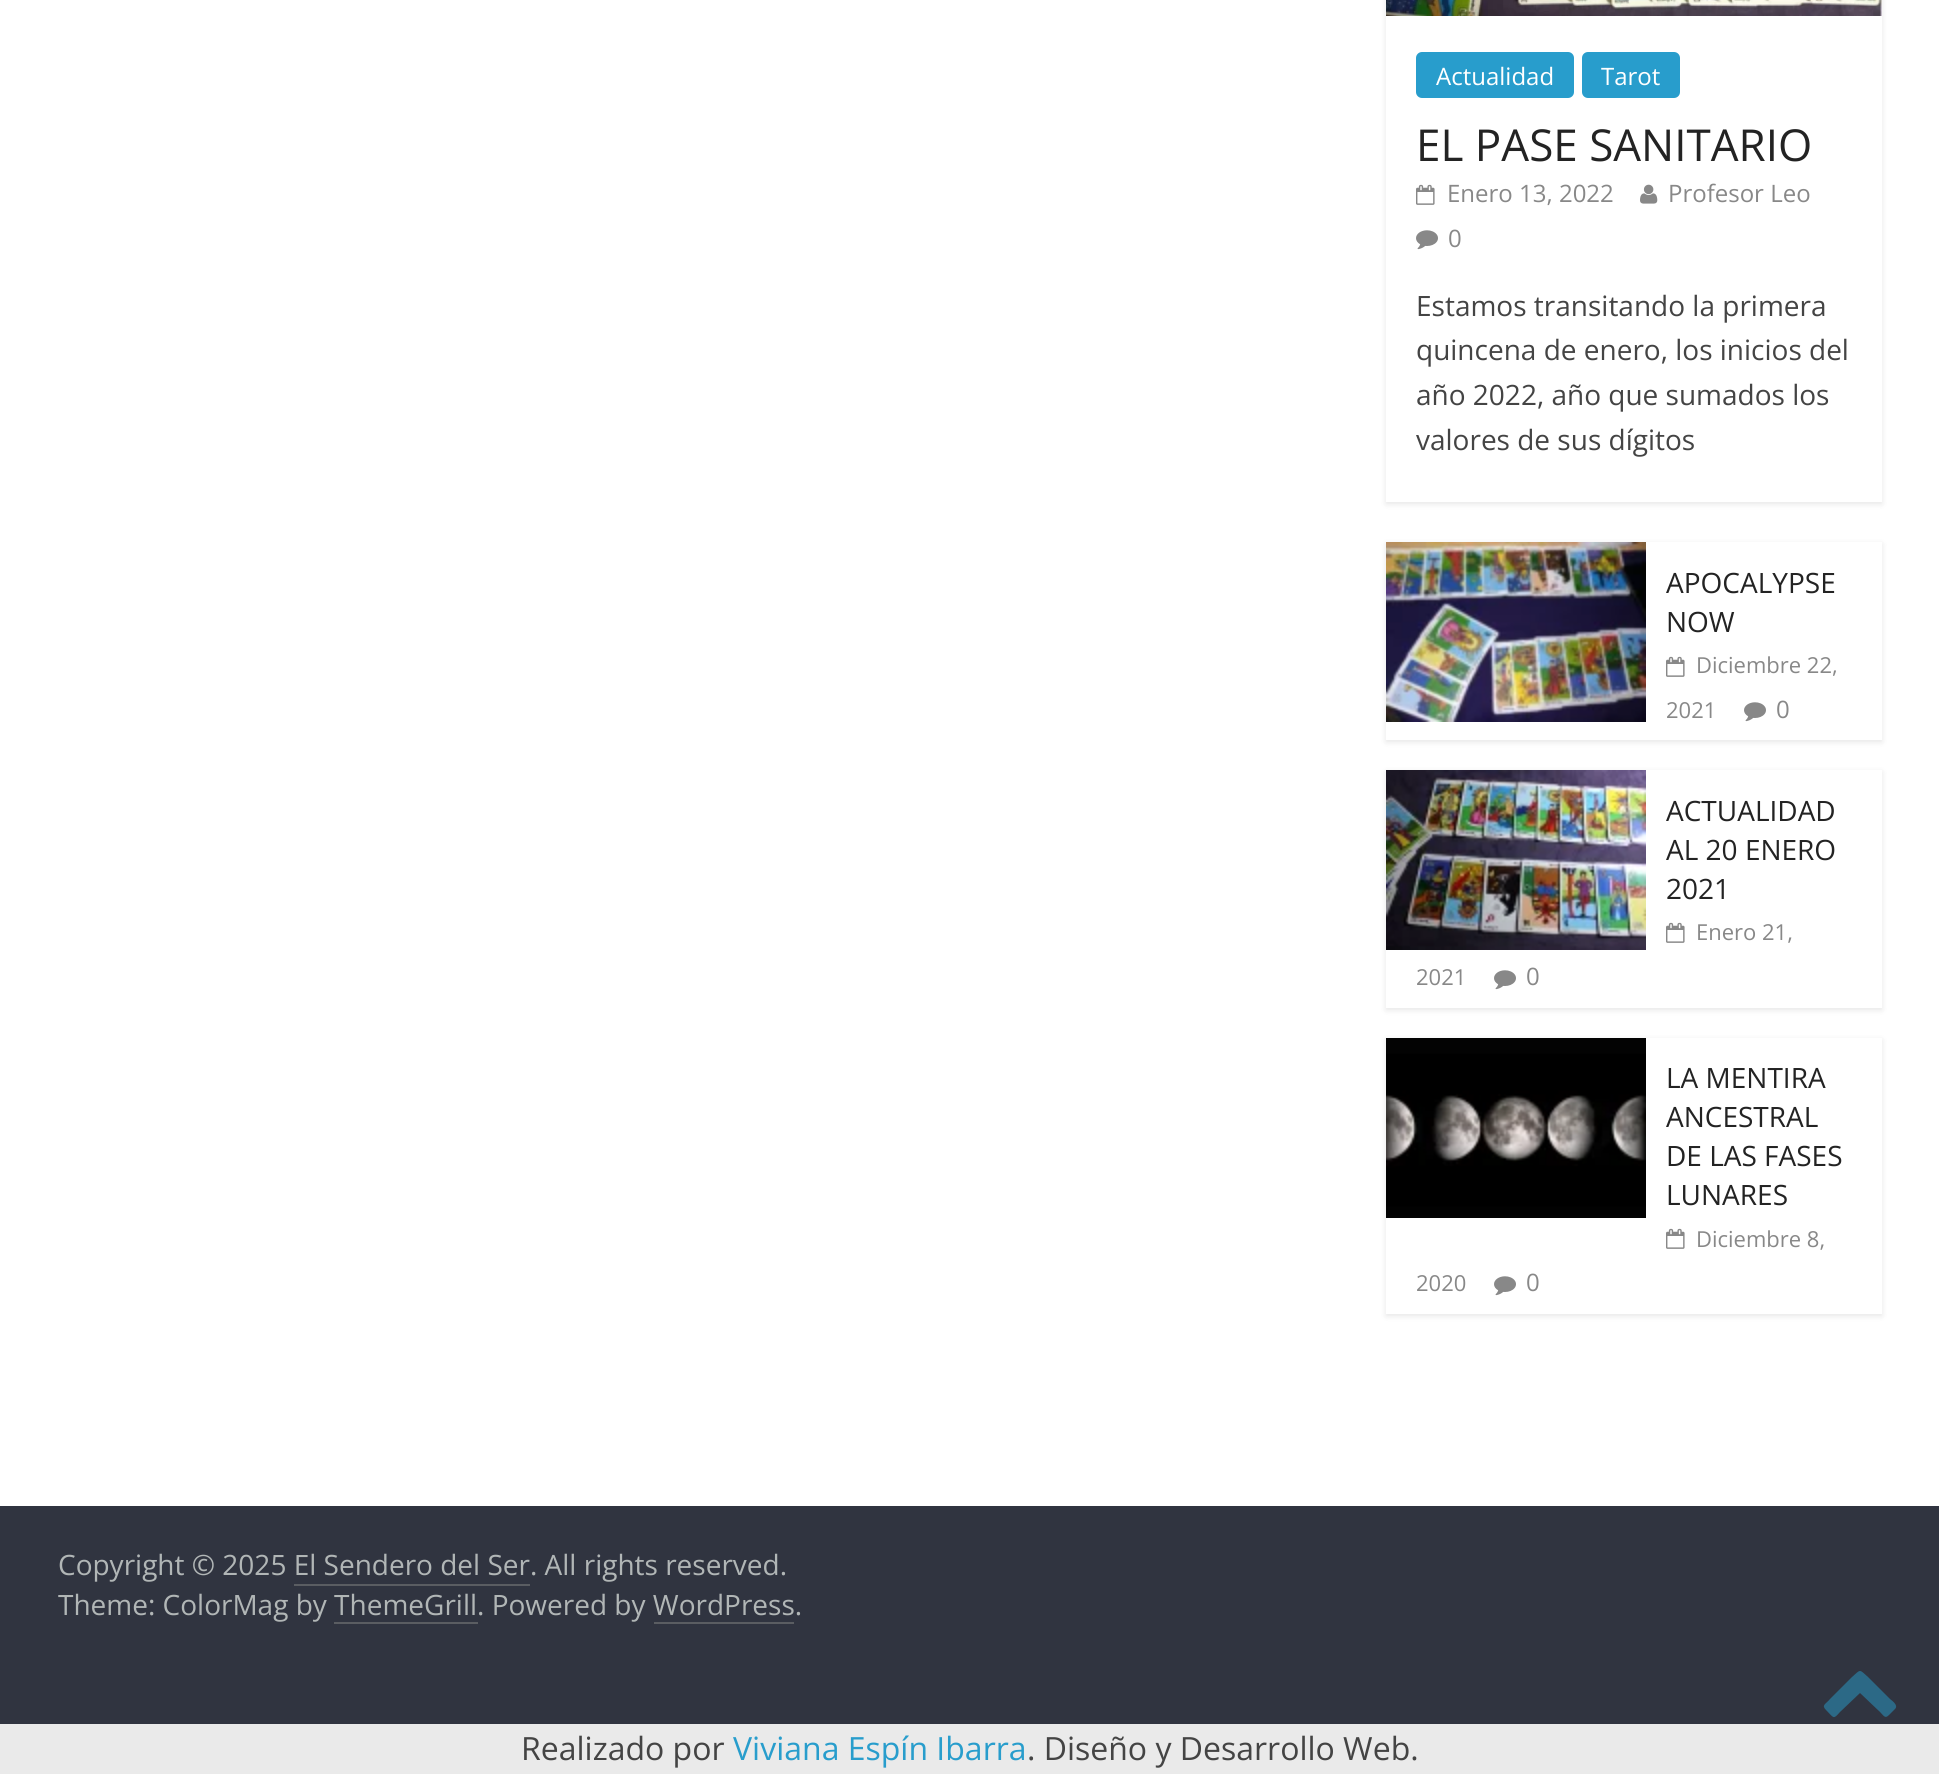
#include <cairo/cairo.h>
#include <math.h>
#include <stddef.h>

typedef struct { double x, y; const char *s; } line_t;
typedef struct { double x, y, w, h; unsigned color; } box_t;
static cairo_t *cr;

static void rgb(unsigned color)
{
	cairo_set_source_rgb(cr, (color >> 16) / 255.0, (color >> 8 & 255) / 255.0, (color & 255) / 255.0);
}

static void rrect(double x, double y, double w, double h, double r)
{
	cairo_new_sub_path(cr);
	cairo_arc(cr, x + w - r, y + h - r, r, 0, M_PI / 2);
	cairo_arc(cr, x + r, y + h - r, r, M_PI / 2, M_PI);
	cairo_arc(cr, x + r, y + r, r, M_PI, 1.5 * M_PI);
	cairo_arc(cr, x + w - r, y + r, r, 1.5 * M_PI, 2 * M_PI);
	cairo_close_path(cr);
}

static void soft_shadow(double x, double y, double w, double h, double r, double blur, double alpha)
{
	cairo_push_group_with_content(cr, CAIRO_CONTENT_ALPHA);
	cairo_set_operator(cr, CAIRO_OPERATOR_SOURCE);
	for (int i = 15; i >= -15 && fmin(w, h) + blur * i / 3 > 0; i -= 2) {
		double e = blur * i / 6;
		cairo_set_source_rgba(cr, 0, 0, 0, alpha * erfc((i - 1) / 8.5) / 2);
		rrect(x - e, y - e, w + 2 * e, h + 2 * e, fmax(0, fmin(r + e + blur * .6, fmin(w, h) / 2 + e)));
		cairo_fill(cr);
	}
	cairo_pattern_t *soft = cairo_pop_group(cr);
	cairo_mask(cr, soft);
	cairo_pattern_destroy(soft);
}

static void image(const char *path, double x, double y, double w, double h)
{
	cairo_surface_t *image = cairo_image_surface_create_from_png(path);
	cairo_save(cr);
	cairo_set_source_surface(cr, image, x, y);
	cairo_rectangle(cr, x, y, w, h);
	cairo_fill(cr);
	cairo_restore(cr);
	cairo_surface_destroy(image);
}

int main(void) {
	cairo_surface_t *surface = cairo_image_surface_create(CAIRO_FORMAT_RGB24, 1939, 1774);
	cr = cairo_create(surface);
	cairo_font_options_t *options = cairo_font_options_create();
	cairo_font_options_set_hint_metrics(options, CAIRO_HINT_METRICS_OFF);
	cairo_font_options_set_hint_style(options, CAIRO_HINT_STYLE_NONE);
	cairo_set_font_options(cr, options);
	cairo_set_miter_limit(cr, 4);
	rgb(0xeaeaea);
	cairo_paint(cr);
	rgb(0xffffff);
	cairo_rectangle(cr, 0, 0, 1939, 1506);
	cairo_fill(cr);
	cairo_save(cr);
	cairo_set_fill_rule(cr, CAIRO_FILL_RULE_EVEN_ODD);
	cairo_new_path(cr);
	cairo_move_to(cr, 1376, 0);
	cairo_line_to(cr, 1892, 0);
	cairo_line_to(cr, 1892, 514);
	cairo_line_to(cr, 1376, 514);
	cairo_close_path(cr);
	cairo_move_to(cr, 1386, -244);
	cairo_line_to(cr, 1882, -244);
	cairo_line_to(cr, 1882, 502);
	cairo_line_to(cr, 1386, 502);
	cairo_close_path(cr);
	cairo_clip(cr);
	rgb(0x000000);
	soft_shadow(1386, -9, 496, 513, 0, 3, 0.1);
	cairo_restore(cr);
	image("img/1.png", 1386, 0, 496, 16);
	rgb(0x289dcc);
	rrect(1416, 52, 158, 46, 6);
	cairo_fill(cr);
	rrect(1582, 52, 98, 46, 6);
	cairo_fill(cr);
	image("img/2.png", 1416, 184, 19, 21);
	image("img/3.png", 1640, 184, 18, 20);
	image("img/4.png", 1416, 230, 22, 20);
	cairo_save(cr);
	cairo_set_fill_rule(cr, CAIRO_FILL_RULE_EVEN_ODD);
	cairo_new_path(cr);
	cairo_move_to(cr, 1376, 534);
	cairo_line_to(cr, 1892, 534);
	cairo_line_to(cr, 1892, 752);
	cairo_line_to(cr, 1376, 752);
	cairo_close_path(cr);
	cairo_move_to(cr, 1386, 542);
	cairo_line_to(cr, 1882, 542);
	cairo_line_to(cr, 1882, 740);
	cairo_line_to(cr, 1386, 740);
	cairo_close_path(cr);
	cairo_clip(cr);
	rgb(0x000000);
	soft_shadow(1386, 544, 496, 198, 0, 3, 0.1);
	cairo_restore(cr);
	image("img/5.png", 1386, 542, 260, 180);
	image("img/2.png", 1666, 656, 19, 21);
	image("img/4.png", 1744, 702, 22, 20);
	cairo_save(cr);
	cairo_set_fill_rule(cr, CAIRO_FILL_RULE_EVEN_ODD);
	cairo_new_path(cr);
	cairo_move_to(cr, 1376, 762);
	cairo_line_to(cr, 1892, 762);
	cairo_line_to(cr, 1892, 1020);
	cairo_line_to(cr, 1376, 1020);
	cairo_close_path(cr);
	cairo_move_to(cr, 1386, 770);
	cairo_line_to(cr, 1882, 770);
	cairo_line_to(cr, 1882, 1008);
	cairo_line_to(cr, 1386, 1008);
	cairo_close_path(cr);
	cairo_clip(cr);
	rgb(0x000000);
	soft_shadow(1386, 772, 496, 238, 0, 3, 0.1);
	cairo_restore(cr);
	image("img/6.png", 1386, 770, 260, 180);
	image("img/2.png", 1666, 922, 19, 21);
	image("img/4.png", 1494, 970, 22, 20);
	cairo_save(cr);
	cairo_set_fill_rule(cr, CAIRO_FILL_RULE_EVEN_ODD);
	cairo_new_path(cr);
	cairo_move_to(cr, 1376, 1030);
	cairo_line_to(cr, 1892, 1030);
	cairo_line_to(cr, 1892, 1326);
	cairo_line_to(cr, 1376, 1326);
	cairo_close_path(cr);
	cairo_move_to(cr, 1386, 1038);
	cairo_line_to(cr, 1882, 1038);
	cairo_line_to(cr, 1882, 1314);
	cairo_line_to(cr, 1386, 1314);
	cairo_close_path(cr);
	cairo_clip(cr);
	rgb(0x000000);
	soft_shadow(1386, 1040, 496, 276, 0, 3, 0.1);
	cairo_restore(cr);
	image("img/7.png", 1386, 1038, 260, 180);
	image("img/2.png", 1666, 1228, 19, 21);
	image("img/4.png", 1494, 1276, 22, 20);
	{
		static const box_t items[] = {
			{0, 1506, 1939, 218, 0x303440},
			{294, 1584, 236, 2, 0x5a5d62},
			{334, 1622, 144, 2, 0x5a5d62},
			{654, 1622, 140, 2, 0x5a5d62},
		};
		for (size_t i = 0; i < sizeof items / sizeof *items; i++) {
			rgb(items[i].color);
			cairo_rectangle(cr, items[i].x, items[i].y, items[i].w, items[i].h);
			cairo_fill(cr);
		}
	}
	rgb(0x2c6986);
	cairo_new_path(cr);
	cairo_move_to(cr, 1895, 1709);
	cairo_line_to(cr, 1889, 1715);
	cairo_curve_to(cr, 1885, 1719, 1884, 1716, 1880, 1712);
	cairo_line_to(cr, 1860, 1693);
	cairo_line_to(cr, 1840, 1712);
	cairo_curve_to(cr, 1833, 1720, 1834, 1718, 1826, 1710);
	cairo_curve_to(cr, 1821, 1705, 1826, 1704, 1830, 1699);
	cairo_line_to(cr, 1852, 1677);
	cairo_curve_to(cr, 1861, 1669, 1859, 1669, 1868, 1677);
	cairo_line_to(cr, 1890, 1699);
	cairo_curve_to(cr, 1891, 1700, 1899, 1705, 1895, 1709);
	cairo_close_path(cr);
	cairo_fill(cr);
	cairo_select_font_face(cr, "Open Sans", CAIRO_FONT_SLANT_NORMAL, CAIRO_FONT_WEIGHT_NORMAL);
	cairo_set_font_size(cr, 24);
	rgb(0xffffff);
	cairo_move_to(cr, 1436, 85);
	cairo_show_text(cr, "Actualidad");
	cairo_move_to(cr, 1601, 85);
	cairo_show_text(cr, "Tarot");
	cairo_set_font_size(cr, 44);
	rgb(0x232323);
	cairo_move_to(cr, 1416, 161);
	cairo_show_text(cr, "EL PASE SANITARIO");
	cairo_set_font_size(cr, 24);
	rgb(0x888888);
	{
		static const line_t items[] = {
			{1447, 202, "Enero 13, 2022"},
			{1668, 202, "Profesor Leo"},
			{1448, 247, "0"},
		};
		for (size_t i = 0; i < sizeof items / sizeof *items; i++) {
			cairo_move_to(cr, items[i].x, items[i].y);
			cairo_show_text(cr, items[i].s);
		}
	}
	cairo_set_font_size(cr, 28);
	rgb(0x444444);
	{
		static const line_t items[] = {
			{1416, 316, "Estamos transitando la primera"},
			{1416, 360, "quincena de enero, los inicios del"},
			{1416, 405, "año 2022, año que sumados los"},
			{1416, 450, "valores de sus dígitos"},
		};
		for (size_t i = 0; i < sizeof items / sizeof *items; i++) {
			cairo_move_to(cr, items[i].x, items[i].y);
			cairo_show_text(cr, items[i].s);
		}
	}
	rgb(0x232323);
	cairo_move_to(cr, 1666, 593);
	cairo_show_text(cr, "APOCALYPSE");
	cairo_move_to(cr, 1666, 632);
	cairo_show_text(cr, "NOW");
	cairo_set_font_size(cr, 22);
	rgb(0x888888);
	cairo_move_to(cr, 1696, 673);
	cairo_show_text(cr, "Diciembre 22,");
	cairo_move_to(cr, 1666, 718);
	cairo_show_text(cr, "2021");
	cairo_set_font_size(cr, 24);
	cairo_move_to(cr, 1776, 718);
	cairo_show_text(cr, "0");
	cairo_set_font_size(cr, 28);
	rgb(0x232323);
	{
		static const line_t items[] = {
			{1666, 821, "ACTUALIDAD"},
			{1666, 860, "AL 20 ENERO"},
			{1666, 899, "2021"},
		};
		for (size_t i = 0; i < sizeof items / sizeof *items; i++) {
			cairo_move_to(cr, items[i].x, items[i].y);
			cairo_show_text(cr, items[i].s);
		}
	}
	cairo_set_font_size(cr, 22);
	rgb(0x888888);
	cairo_move_to(cr, 1696, 940);
	cairo_show_text(cr, "Enero 21,");
	cairo_move_to(cr, 1416, 985);
	cairo_show_text(cr, "2021");
	cairo_set_font_size(cr, 24);
	cairo_move_to(cr, 1526, 985);
	cairo_show_text(cr, "0");
	cairo_set_font_size(cr, 28);
	rgb(0x232323);
	{
		static const line_t items[] = {
			{1666, 1088, "LA MENTIRA"},
			{1666, 1127, "ANCESTRAL"},
			{1666, 1166, "DE LAS FASES"},
			{1666, 1205, "LUNARES"},
		};
		for (size_t i = 0; i < sizeof items / sizeof *items; i++) {
			cairo_move_to(cr, items[i].x, items[i].y);
			cairo_show_text(cr, items[i].s);
		}
	}
	cairo_set_font_size(cr, 22);
	rgb(0x888888);
	cairo_move_to(cr, 1696, 1247);
	cairo_show_text(cr, "Diciembre 8,");
	cairo_move_to(cr, 1416, 1291);
	cairo_show_text(cr, "2020");
	cairo_set_font_size(cr, 24);
	cairo_move_to(cr, 1526, 1291);
	cairo_show_text(cr, "0");
	cairo_set_font_size(cr, 28);
	rgb(0xb1b6b6);
	cairo_move_to(cr, 58, 1575);
	cairo_show_text(cr, "Copyright © 2025 El Sendero del Ser. All rights reserved.");
	cairo_move_to(cr, 58, 1615);
	cairo_show_text(cr, "Theme: ColorMag by ThemeGrill. Powered by WordPress.");
	cairo_set_font_size(cr, 32);
	rgb(0x444444);
	cairo_move_to(cr, 521, 1760);
	cairo_show_text(cr, "Realizado por");
	rgb(0x289dcc);
	cairo_move_to(cr, 733, 1760);
	cairo_show_text(cr, "Viviana Espín Ibarra");
	rgb(0x444444);
	cairo_move_to(cr, 1027, 1760);
	cairo_show_text(cr, ". Diseño y Desarrollo Web.");
	cairo_surface_write_to_png(surface, "page.png");
	cairo_font_options_destroy(options);
	cairo_destroy(cr);
	cairo_surface_destroy(surface);
	return 0;
}
